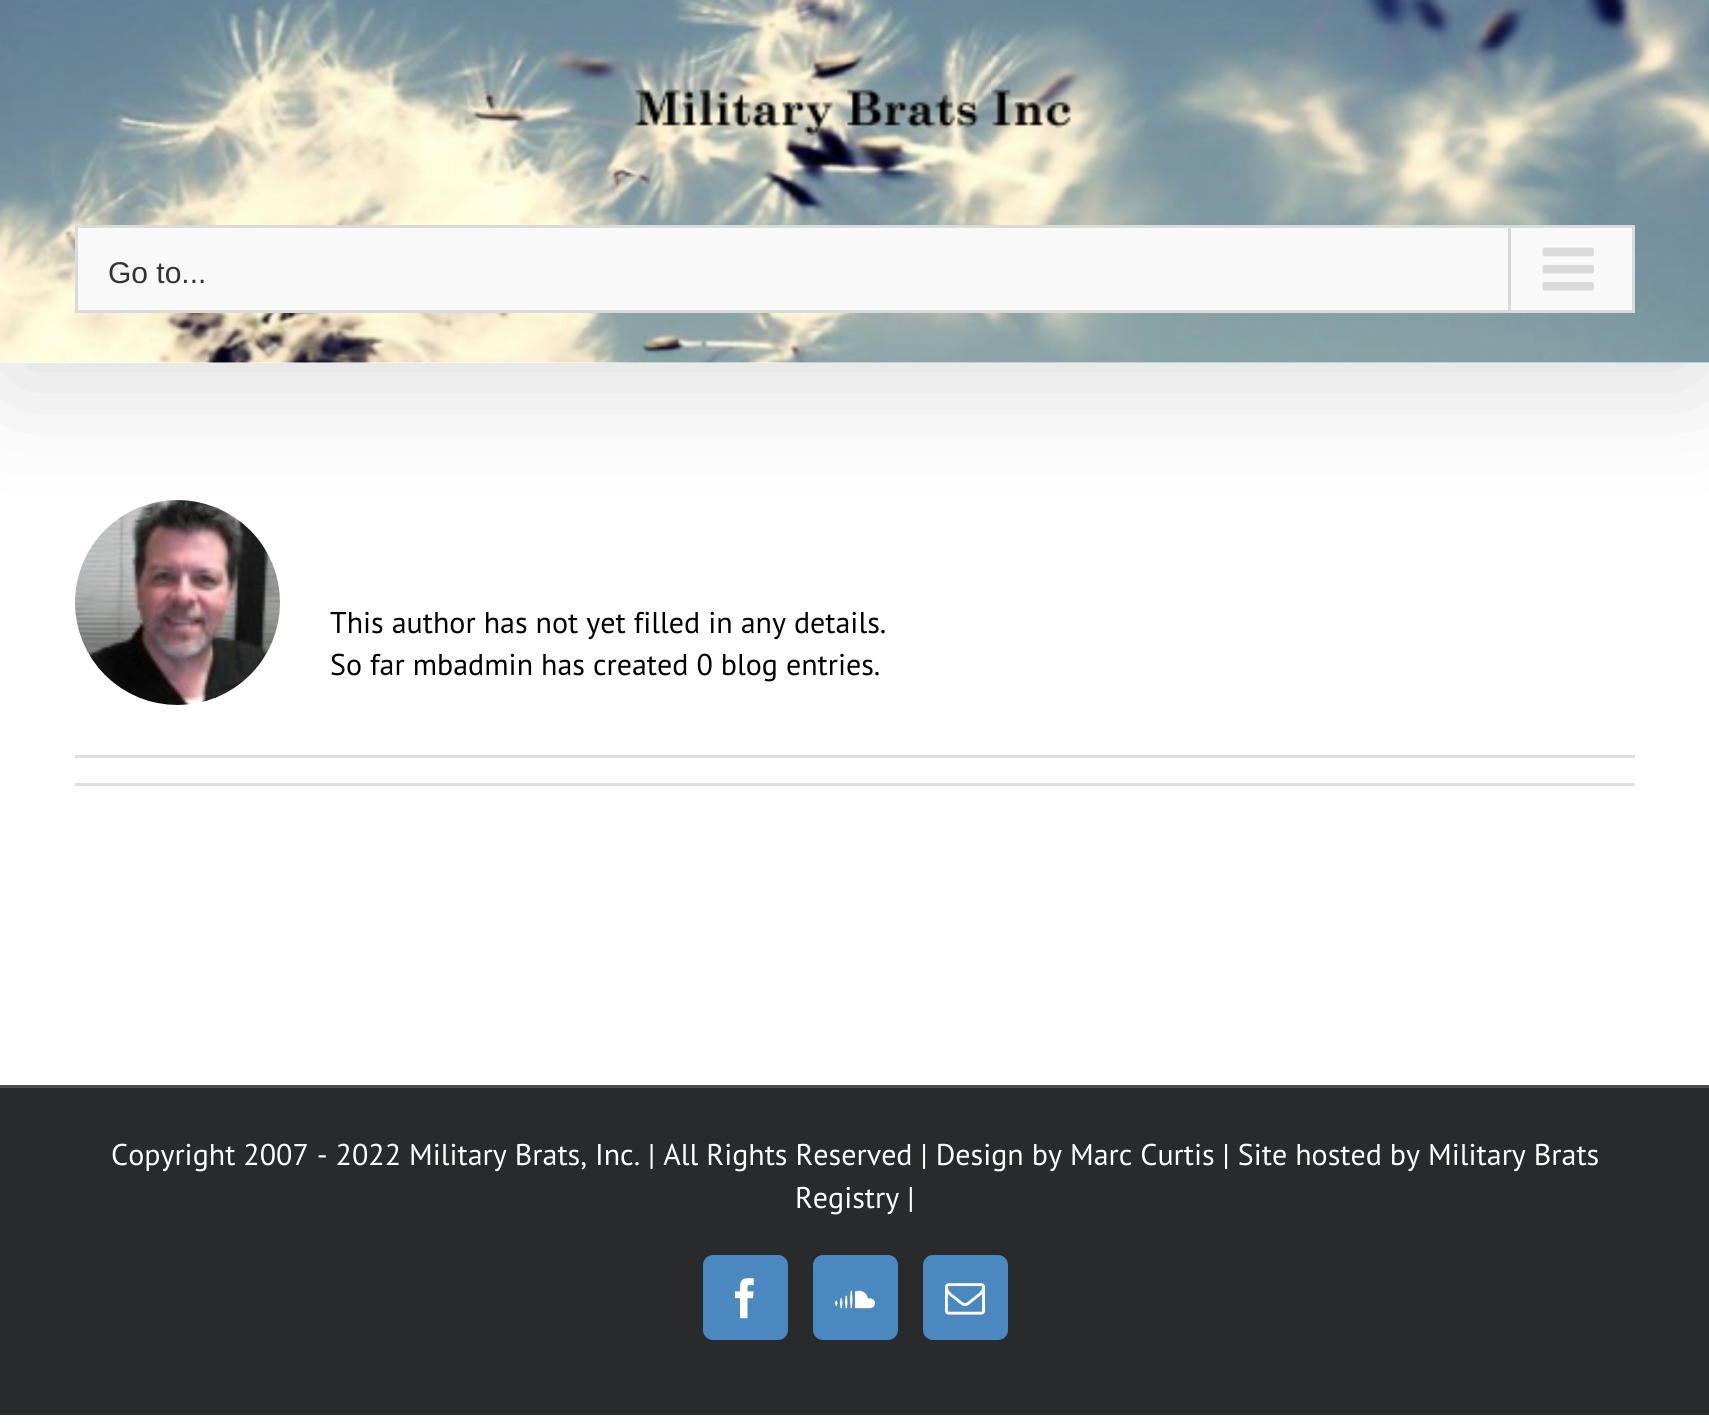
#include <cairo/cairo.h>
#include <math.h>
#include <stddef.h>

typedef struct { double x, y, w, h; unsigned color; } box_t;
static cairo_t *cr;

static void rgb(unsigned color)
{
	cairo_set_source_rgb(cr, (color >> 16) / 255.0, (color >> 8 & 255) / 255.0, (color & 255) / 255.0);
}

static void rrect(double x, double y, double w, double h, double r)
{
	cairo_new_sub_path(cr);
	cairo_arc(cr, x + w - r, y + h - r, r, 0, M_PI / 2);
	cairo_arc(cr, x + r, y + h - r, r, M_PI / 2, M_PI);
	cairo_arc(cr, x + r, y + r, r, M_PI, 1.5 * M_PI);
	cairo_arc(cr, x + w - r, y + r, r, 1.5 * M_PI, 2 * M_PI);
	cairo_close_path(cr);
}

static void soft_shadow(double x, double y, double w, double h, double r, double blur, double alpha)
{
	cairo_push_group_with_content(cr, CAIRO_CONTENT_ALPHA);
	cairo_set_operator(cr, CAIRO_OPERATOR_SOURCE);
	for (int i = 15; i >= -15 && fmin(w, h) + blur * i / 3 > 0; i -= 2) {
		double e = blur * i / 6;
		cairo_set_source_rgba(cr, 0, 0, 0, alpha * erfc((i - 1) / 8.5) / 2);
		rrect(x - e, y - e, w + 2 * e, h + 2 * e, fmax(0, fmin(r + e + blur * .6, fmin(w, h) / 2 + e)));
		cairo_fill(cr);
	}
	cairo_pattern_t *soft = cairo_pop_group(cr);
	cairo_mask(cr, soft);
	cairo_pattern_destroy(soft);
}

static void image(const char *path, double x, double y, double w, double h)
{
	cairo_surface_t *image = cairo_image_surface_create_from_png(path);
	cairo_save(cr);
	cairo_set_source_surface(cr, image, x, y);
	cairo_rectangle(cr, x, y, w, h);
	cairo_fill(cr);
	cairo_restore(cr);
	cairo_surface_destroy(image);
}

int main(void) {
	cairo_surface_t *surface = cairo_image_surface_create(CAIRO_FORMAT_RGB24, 1709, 1427);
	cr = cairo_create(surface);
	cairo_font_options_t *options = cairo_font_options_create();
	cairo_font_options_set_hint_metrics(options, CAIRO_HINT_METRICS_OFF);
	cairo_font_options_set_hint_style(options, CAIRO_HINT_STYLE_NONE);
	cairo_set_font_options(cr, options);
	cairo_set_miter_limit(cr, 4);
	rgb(0xffffff);
	cairo_paint(cr);
	image("img/4.png", 75, 500, 205, 205);
	rgb(0x000000);
	soft_shadow(5, 30, 1700, 353, 0, 62.5, 0.14);
	rgb(0xffffff);
	cairo_rectangle(cr, 0, 362, 1709, 1);
	cairo_fill(cr);
	image("img/1.png", 0, 0, 1709, 363);
	image("img/2.png", 634, 89, 437, 47);
	rgb(0xf9f9f9);
	cairo_rectangle(cr, 76.5, 226.5, 1557, 85);
	cairo_fill_preserve(cr);
	rgb(0xdadada);
	cairo_set_line_width(cr, 3);
	cairo_stroke(cr);
	cairo_rectangle(cr, 1508, 228, 3, 82);
	cairo_fill(cr);
	image("img/3.png", 1542, 247, 52, 44);
	{
		static const box_t items[] = {
			{75, 755, 1560, 3, 0xe0dede},
			{75, 783, 1560, 3, 0xe0dede},
			{0, 1088, 1709, 327, 0x282a2b},
			{0, 1085, 1709, 3, 0x4b4c4d},
		};
		for (size_t i = 0; i < sizeof items / sizeof *items; i++) {
			rgb(items[i].color);
			cairo_rectangle(cr, items[i].x, items[i].y, items[i].w, items[i].h);
			cairo_fill(cr);
		}
	}
	rgb(0x4a88bf);
	rrect(704.5, 1256.5, 82, 82, 8.5);
	cairo_fill_preserve(cr);
	cairo_stroke(cr);
	image("img/5.png", 735, 1278, 19, 41);
	rrect(814.5, 1256.5, 82, 82, 8.5);
	cairo_fill_preserve(cr);
	cairo_stroke(cr);
	image("img/6.png", 835, 1290, 40, 19);
	rrect(924.5, 1256.5, 82, 82, 8.5);
	cairo_fill_preserve(cr);
	cairo_stroke(cr);
	image("img/7.png", 945, 1283, 40, 32);
	cairo_select_font_face(cr, "Liberation Sans", CAIRO_FONT_SLANT_NORMAL, CAIRO_FONT_WEIGHT_NORMAL);
	cairo_set_font_size(cr, 30);
	rgb(0x333333);
	cairo_move_to(cr, 108, 283);
	cairo_show_text(cr, "Go to...");
	cairo_select_font_face(cr, "PT Sans", CAIRO_FONT_SLANT_NORMAL, CAIRO_FONT_WEIGHT_NORMAL);
	rgb(0x000000);
	cairo_move_to(cr, 330, 633);
	cairo_show_text(cr, "This author has not yet filled in any details.");
	cairo_move_to(cr, 330, 675);
	cairo_show_text(cr, "So far mbadmin has created 0 blog entries.");
	rgb(0xffffff);
	cairo_move_to(cr, 111, 1165);
	cairo_show_text(cr, "Copyright 2007 - 2022 Military Brats, Inc. | All Rights Reserved | Design by Marc Curtis | Site hosted by Military Brats");
	cairo_move_to(cr, 795, 1208);
	cairo_show_text(cr, "Registry |");
	cairo_surface_write_to_png(surface, "page.png");
	cairo_font_options_destroy(options);
	cairo_destroy(cr);
	cairo_surface_destroy(surface);
	return 0;
}
